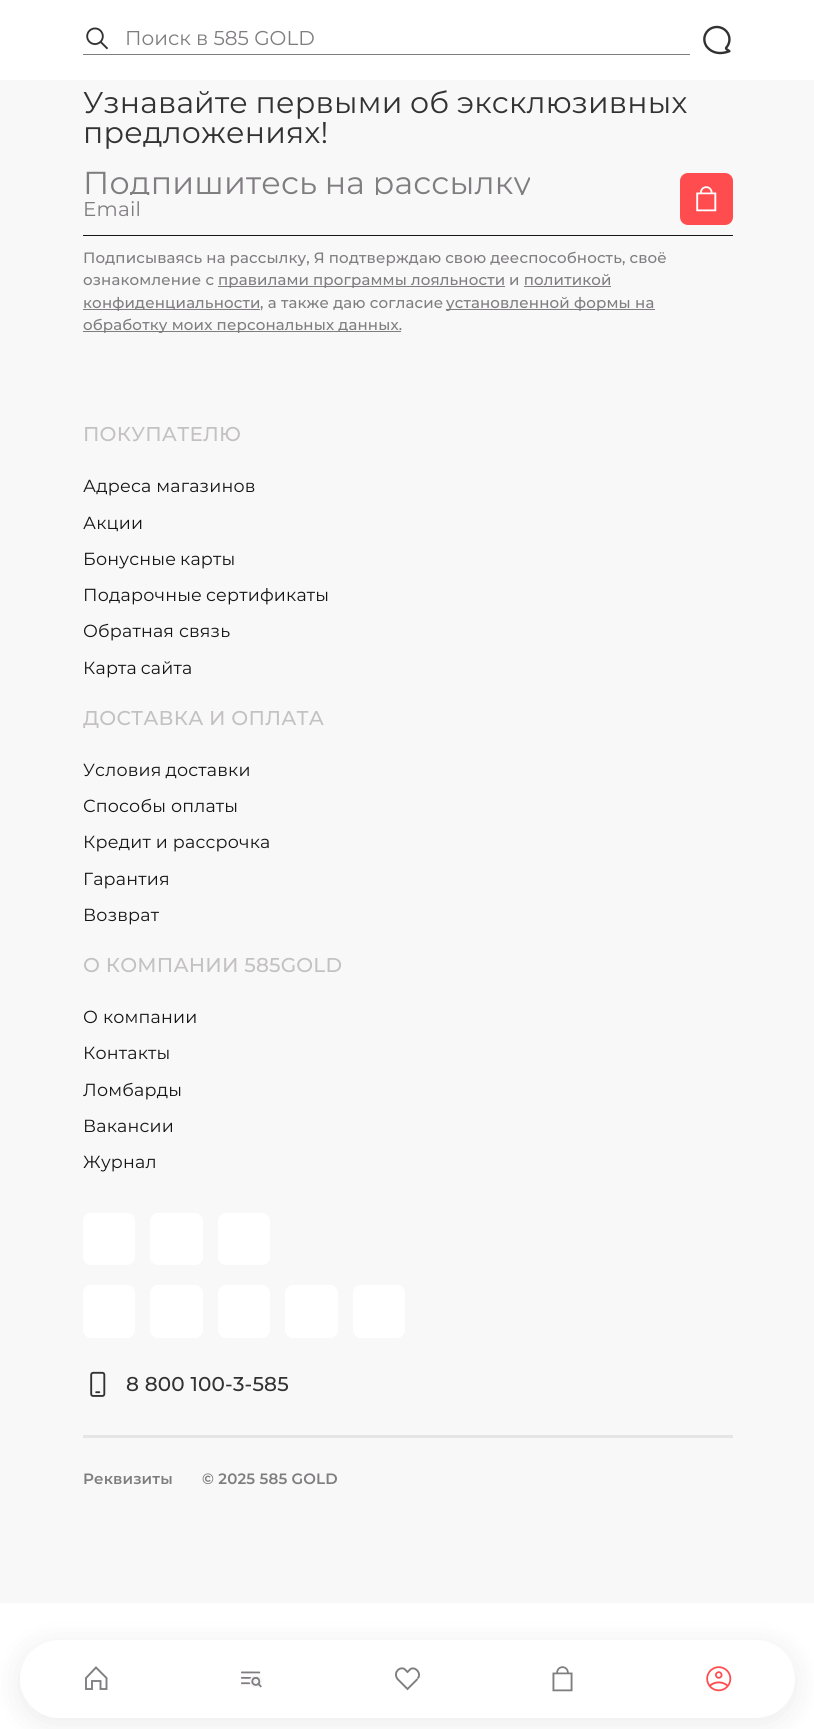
#include <cairo/cairo.h>
#include <math.h>
#include <stddef.h>

typedef struct { double x, y; const char *s; } line_t;
typedef struct { double x, y, w, h; unsigned color; } box_t;
static cairo_t *cr;

static void rgb(unsigned color)
{
	cairo_set_source_rgb(cr, (color >> 16) / 255.0, (color >> 8 & 255) / 255.0, (color & 255) / 255.0);
}

static void tracked(double x, double y, const char *s, double letter, double word)
{
	cairo_move_to(cr, x, y);
	while (*s) {
		char ch[5] = {0};
		int n = 0;
		do ch[n++] = *s++; while ((*s & 0xC0) == 0x80);
		cairo_show_text(cr, ch);
		cairo_rel_move_to(cr, letter + word * (*ch == ' '), 0);
	}
}

static void rrect(double x, double y, double w, double h, double r)
{
	cairo_new_sub_path(cr);
	cairo_arc(cr, x + w - r, y + h - r, r, 0, M_PI / 2);
	cairo_arc(cr, x + r, y + h - r, r, M_PI / 2, M_PI);
	cairo_arc(cr, x + r, y + r, r, M_PI, 1.5 * M_PI);
	cairo_arc(cr, x + w - r, y + r, r, 1.5 * M_PI, 2 * M_PI);
	cairo_close_path(cr);
}

static void soft_shadow(double x, double y, double w, double h, double r, double blur, double alpha)
{
	cairo_push_group_with_content(cr, CAIRO_CONTENT_ALPHA);
	cairo_set_operator(cr, CAIRO_OPERATOR_SOURCE);
	for (int i = 15; i >= -15 && fmin(w, h) + blur * i / 3 > 0; i -= 2) {
		double e = blur * i / 6;
		cairo_set_source_rgba(cr, 0, 0, 0, alpha * erfc((i - 1) / 8.5) / 2);
		rrect(x - e, y - e, w + 2 * e, h + 2 * e, fmax(0, fmin(r + e + blur * .6, fmin(w, h) / 2 + e)));
		cairo_fill(cr);
	}
	cairo_pattern_t *soft = cairo_pop_group(cr);
	cairo_mask(cr, soft);
	cairo_pattern_destroy(soft);
}

static void image(const char *path, double x, double y, double w, double h)
{
	cairo_surface_t *image = cairo_image_surface_create_from_png(path);
	cairo_save(cr);
	cairo_set_source_surface(cr, image, x, y);
	cairo_rectangle(cr, x, y, w, h);
	cairo_fill(cr);
	cairo_restore(cr);
	cairo_surface_destroy(image);
}

int main(void) {
	cairo_surface_t *surface = cairo_image_surface_create(CAIRO_FORMAT_RGB24, 814, 1729);
	cr = cairo_create(surface);
	cairo_font_options_t *options = cairo_font_options_create();
	cairo_font_options_set_hint_metrics(options, CAIRO_HINT_METRICS_OFF);
	cairo_font_options_set_hint_style(options, CAIRO_HINT_STYLE_NONE);
	cairo_set_font_options(cr, options);
	cairo_set_miter_limit(cr, 4);
	rgb(0xffffff);
	cairo_paint(cr);
	rgb(0x7f7d80);
	cairo_rectangle(cr, 83, 54, 607, 1);
	cairo_fill(cr);
	image("img/1.png", 86, 27, 23, 23);
	image("img/2.png", 703, 25, 28, 30);
	rgb(0xf8f8f8);
	cairo_rectangle(cr, 0, 80, 814, 1523);
	cairo_fill(cr);
	rgb(0x151515);
	cairo_rectangle(cr, 83, 235, 650, 1);
	cairo_fill(cr);
	rgb(0xff4d4f);
	rrect(680, 173, 53, 52, 8);
	cairo_fill(cr);
	image("img/3.png", 696, 186, 21, 26);
	{
		static const box_t items[] = {
			{218, 286, 287, 1, 0x7f7d80},
			{524, 286, 87, 1, 0x7f7d80},
			{83, 309, 177, 1, 0x7f7d80},
			{446, 309, 209, 1, 0x7f7d80},
			{83, 331, 318, 1, 0x7f7d80},
		};
		for (size_t i = 0; i < sizeof items / sizeof *items; i++) {
			rgb(items[i].color);
			cairo_rectangle(cr, items[i].x, items[i].y, items[i].w, items[i].h);
			cairo_fill(cr);
		}
	}
	rgb(0xffffff);
	rrect(83, 1213, 52, 52, 8);
	cairo_fill(cr);
	rrect(150, 1213, 53, 52, 8);
	cairo_fill(cr);
	rrect(218, 1213, 52, 52, 8);
	cairo_fill(cr);
	rrect(83, 1285, 52, 53, 8);
	cairo_fill(cr);
	rrect(150, 1285, 53, 53, 8);
	cairo_fill(cr);
	rrect(218, 1285, 52, 53, 8);
	cairo_fill(cr);
	rrect(285, 1285, 53, 53, 8);
	cairo_fill(cr);
	rrect(353, 1285, 52, 53, 8);
	cairo_fill(cr);
	image("img/4.png", 90, 1371, 16, 26);
	rgb(0xe5e5e5);
	cairo_rectangle(cr, 83, 1435, 650, 3);
	cairo_fill(cr);
	rgb(0x000000);
	soft_shadow(20, 1645, 775, 78, 39, 15.5, 0.08);
	rgb(0xffffff);
	rrect(20, 1640, 775, 78, 39);
	cairo_fill(cr);
	cairo_new_path(cr);
	cairo_move_to(cr, 93, 1681);
	cairo_line_to(cr, 92, 1681);
	cairo_line_to(cr, 92, 1689);
	cairo_line_to(cr, 86, 1689);
	cairo_line_to(cr, 86, 1678);
	cairo_line_to(cr, 96, 1667.5);
	cairo_line_to(cr, 106.5, 1678);
	cairo_line_to(cr, 106.5, 1689);
	cairo_line_to(cr, 100.5, 1689);
	cairo_line_to(cr, 100.5, 1681);
	cairo_close_path(cr);
	rgb(0x7f7d80);
	cairo_set_line_width(cr, 1.9);
	cairo_stroke(cr);
	image("img/5.png", 241, 1671, 21, 17);
	cairo_new_path(cr);
	cairo_move_to(cr, 417.5, 1679);
	cairo_line_to(cr, 407.5, 1689);
	cairo_line_to(cr, 397.5, 1679);
	cairo_curve_to(cr, 396.5, 1677.5, 394.5, 1674, 397.5, 1670.5);
	cairo_curve_to(cr, 400, 1667.5, 404, 1668, 405, 1669.5);
	cairo_line_to(cr, 407.5, 1672);
	cairo_line_to(cr, 410.5, 1669);
	cairo_curve_to(cr, 416, 1666, 422, 1674.5, 417.5, 1678.5);
	cairo_stroke(cr);
	image("img/6.png", 552, 1666, 21, 26);
	image("img/7.png", 706, 1666, 26, 26);
	cairo_select_font_face(cr, "Montserrat", CAIRO_FONT_SLANT_NORMAL, CAIRO_FONT_WEIGHT_NORMAL);
	cairo_set_font_size(cr, 20);
	cairo_move_to(cr, 125, 45);
	cairo_show_text(cr, "Поиск в 585 GOLD");
	cairo_set_font_size(cr, 30);
	rgb(0x323232);
	tracked(83, 113, "Узнавайте первыми об эксклюзивных", 0.2, -0.5);
	tracked(83, 143, "предложениях!", 0.2, 0);
	cairo_save(cr);
	cairo_rectangle(cr, 83, 170, 447, 25);
	cairo_clip(cr);
	cairo_set_font_size(cr, 31.75);
	rgb(0x7f7d80);
	tracked(83, 194, "Подпишитесь на рассылку", 0.2, -1);
	cairo_restore(cr);
	cairo_set_font_size(cr, 20);
	rgb(0x7f7d80);
	tracked(83, 216, "Email", 0.2, 0);
	cairo_select_font_face(cr, "Montserrat Medium", CAIRO_FONT_SLANT_NORMAL, CAIRO_FONT_WEIGHT_NORMAL);
	cairo_set_font_size(cr, 15);
	tracked(83, 263, "Подписываясь на рассылку, Я подтверждаю свою дееспособность, своё", 0.15, -0.25);
	tracked(83, 285, "ознакомление с", 0.15, 0);
	tracked(218, 285, "правилами программы лояльности", 0.15, -0.25);
	{
		static const line_t items[] = {
			{509, 285, "и политикой"},
			{83, 308, "конфиденциальности"},
			{260, 308, ", а также даю согласие"},
			{446, 308, "установленной формы на"},
			{83, 330, "обработку моих персональных данных."},
		};
		for (size_t i = 0; i < sizeof items / sizeof *items; i++) {
			tracked(items[i].x, items[i].y, items[i].s, 0.15, 0);
		}
	}
	cairo_set_font_size(cr, 20);
	rgb(0xc3c1c1);
	tracked(83, 441, "ПОКУПАТЕЛЮ", 0.2, 0);
	cairo_select_font_face(cr, "Montserrat", CAIRO_FONT_SLANT_NORMAL, CAIRO_FONT_WEIGHT_NORMAL);
	cairo_set_font_size(cr, 17.5);
	rgb(0x151515);
	tracked(83, 492, "Адреса магазинов", 0.2, 0);
	tracked(83, 529, "Акции", 0.2, 0);
	tracked(83, 565, "Бонусные карты", 0.2, -1);
	tracked(83, 601, "Подарочные сертификаты", 0.2, -1);
	tracked(83, 637, "Обратная связь", 0.2, 0);
	tracked(83, 674, "Карта сайта", 0.2, -1);
	cairo_select_font_face(cr, "Montserrat Medium", CAIRO_FONT_SLANT_NORMAL, CAIRO_FONT_WEIGHT_NORMAL);
	cairo_set_font_size(cr, 20);
	rgb(0xc3c1c1);
	tracked(83, 725, "ДОСТАВКА И ОПЛАТА", 0.2, 0);
	cairo_select_font_face(cr, "Montserrat", CAIRO_FONT_SLANT_NORMAL, CAIRO_FONT_WEIGHT_NORMAL);
	cairo_set_font_size(cr, 17.5);
	rgb(0x151515);
	tracked(83, 776, "Условия доставки", 0.2, -1);
	{
		static const line_t items[] = {
			{83, 812, "Способы оплаты"},
			{83, 848, "Кредит и рассрочка"},
			{83, 885, "Гарантия"},
			{83, 921, "Возврат"},
		};
		for (size_t i = 0; i < sizeof items / sizeof *items; i++) {
			tracked(items[i].x, items[i].y, items[i].s, 0.2, 0);
		}
	}
	cairo_select_font_face(cr, "Montserrat Medium", CAIRO_FONT_SLANT_NORMAL, CAIRO_FONT_WEIGHT_NORMAL);
	cairo_set_font_size(cr, 20);
	rgb(0xc3c1c1);
	tracked(83, 972, "О КОМПАНИИ 585GOLD", 0.2, 0);
	cairo_select_font_face(cr, "Montserrat", CAIRO_FONT_SLANT_NORMAL, CAIRO_FONT_WEIGHT_NORMAL);
	cairo_set_font_size(cr, 17.5);
	rgb(0x151515);
	{
		static const line_t items[] = {
			{83, 1023, "О компании"},
			{83, 1059, "Контакты"},
			{83, 1096, "Ломбарды"},
			{83, 1132, "Вакансии"},
			{83, 1168, "Журнал"},
		};
		for (size_t i = 0; i < sizeof items / sizeof *items; i++) {
			tracked(items[i].x, items[i].y, items[i].s, 0.2, 0);
		}
	}
	cairo_select_font_face(cr, "Montserrat Medium", CAIRO_FONT_SLANT_NORMAL, CAIRO_FONT_WEIGHT_NORMAL);
	cairo_set_font_size(cr, 20);
	rgb(0x323232);
	tracked(126, 1391, "8 800 100-3-585", 0.2, 0);
	cairo_select_font_face(cr, "Montserrat SemiBold", CAIRO_FONT_SLANT_NORMAL, CAIRO_FONT_WEIGHT_NORMAL);
	cairo_set_font_size(cr, 15);
	rgb(0x7f7d80);
	tracked(83, 1484, "Реквизиты", 0.15, 0);
	tracked(202, 1484, "© 2025 585 GOLD", 0.15, 0);
	cairo_surface_write_to_png(surface, "page.png");
	cairo_font_options_destroy(options);
	cairo_destroy(cr);
	cairo_surface_destroy(surface);
	return 0;
}
